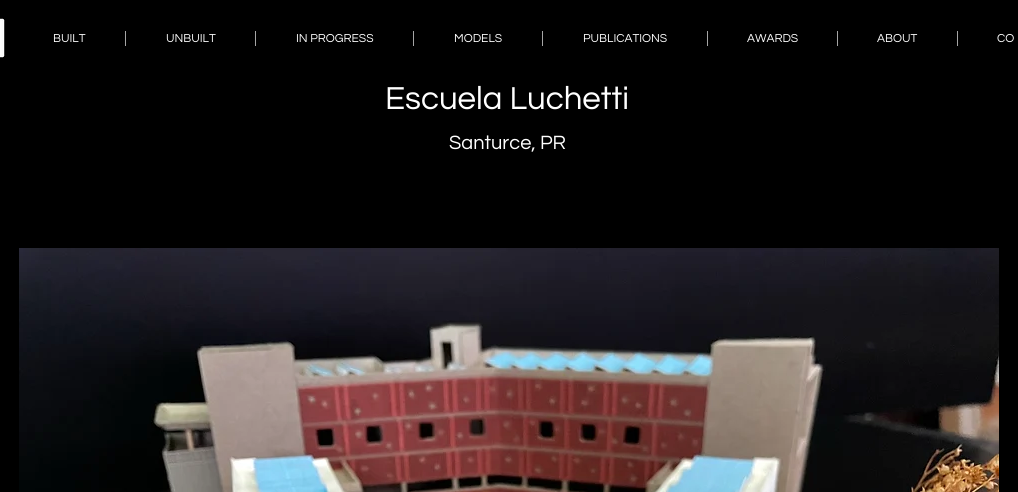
#include <cairo/cairo.h>
#include <math.h>
#include <stddef.h>

typedef struct { double x, y; const char *s; } line_t;
typedef struct { double x, y, w, h; unsigned color; } box_t;
static cairo_t *cr;

static void rgb(unsigned color)
{
	cairo_set_source_rgb(cr, (color >> 16) / 255.0, (color >> 8 & 255) / 255.0, (color & 255) / 255.0);
}

static void image(const char *path, double x, double y, double w, double h)
{
	cairo_surface_t *image = cairo_image_surface_create_from_png(path);
	cairo_save(cr);
	cairo_set_source_surface(cr, image, x, y);
	cairo_rectangle(cr, x, y, w, h);
	cairo_fill(cr);
	cairo_restore(cr);
	cairo_surface_destroy(image);
}

int main(void) {
	cairo_surface_t *surface = cairo_image_surface_create(CAIRO_FORMAT_RGB24, 1018, 492);
	cr = cairo_create(surface);
	cairo_font_options_t *options = cairo_font_options_create();
	cairo_font_options_set_hint_metrics(options, CAIRO_HINT_METRICS_OFF);
	cairo_font_options_set_hint_style(options, CAIRO_HINT_STYLE_NONE);
	cairo_set_font_options(cr, options);
	cairo_set_miter_limit(cr, 4);
	rgb(0x000000);
	cairo_paint(cr);
	image("img/1.png", 0, 18, 5, 40);
	{
		static const box_t items[] = {
			{125, 31, 1, 15, 0xa5a5a5},
			{255, 31, 1, 15, 0xa5a5a5},
			{413, 31, 1, 15, 0xa5a5a5},
			{542, 31, 1, 15, 0xa5a5a5},
			{707, 31, 1, 15, 0xa5a5a5},
			{837, 31, 1, 15, 0xa5a5a5},
			{957, 31, 1, 15, 0xa5a5a5},
		};
		for (size_t i = 0; i < sizeof items / sizeof *items; i++) {
			rgb(items[i].color);
			cairo_rectangle(cr, items[i].x, items[i].y, items[i].w, items[i].h);
			cairo_fill(cr);
		}
	}
	image("img/2.png", 19, 248, 980, 244);
	cairo_select_font_face(cr, "Questrial", CAIRO_FONT_SLANT_NORMAL, CAIRO_FONT_WEIGHT_NORMAL);
	cairo_set_font_size(cr, 12);
	rgb(0xffffff);
	{
		static const line_t items[] = {
			{53, 42, "BUILT"},
			{166, 42, "UNBUILT"},
			{296, 42, "IN PROGRESS"},
			{454, 42, "MODELS"},
			{583, 42, "PUBLICATIONS"},
			{747, 42, "AWARDS"},
			{877, 42, "ABOUT"},
			{997, 42, "CO"},
		};
		for (size_t i = 0; i < sizeof items / sizeof *items; i++) {
			cairo_move_to(cr, items[i].x, items[i].y);
			cairo_show_text(cr, items[i].s);
		}
	}
	cairo_set_font_size(cr, 33);
	cairo_move_to(cr, 385, 109);
	cairo_show_text(cr, "Escuela Luchetti");
	cairo_set_font_size(cr, 20);
	cairo_move_to(cr, 449, 149);
	cairo_show_text(cr, "Santurce, PR");
	cairo_surface_write_to_png(surface, "page.png");
	cairo_font_options_destroy(options);
	cairo_destroy(cr);
	cairo_surface_destroy(surface);
	return 0;
}
